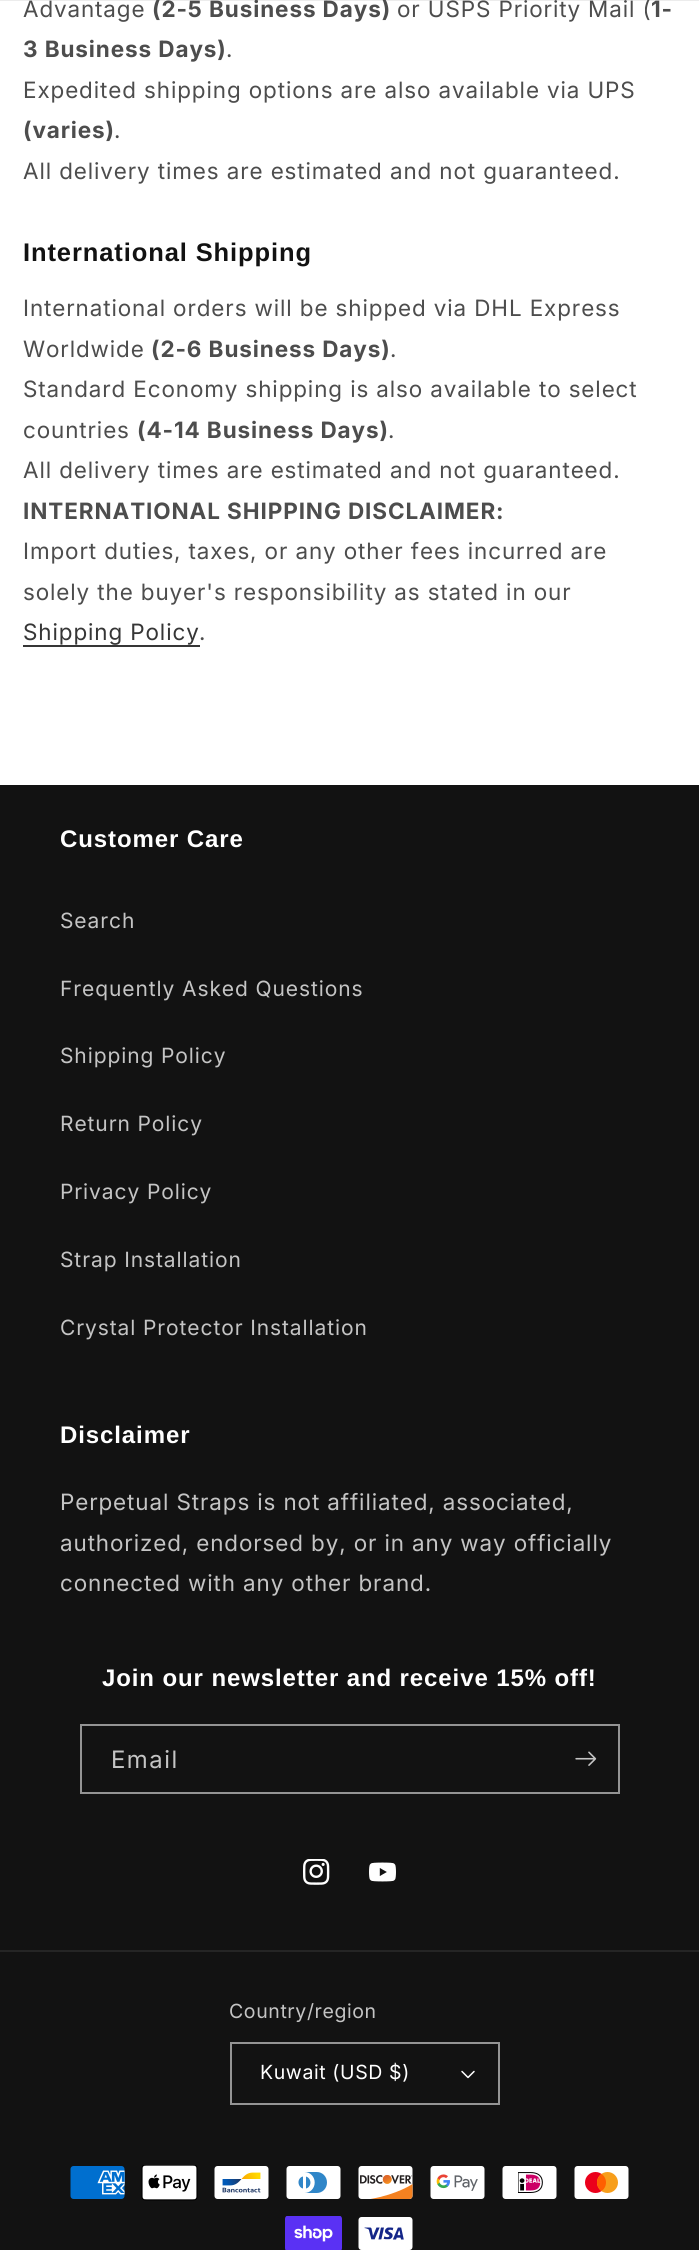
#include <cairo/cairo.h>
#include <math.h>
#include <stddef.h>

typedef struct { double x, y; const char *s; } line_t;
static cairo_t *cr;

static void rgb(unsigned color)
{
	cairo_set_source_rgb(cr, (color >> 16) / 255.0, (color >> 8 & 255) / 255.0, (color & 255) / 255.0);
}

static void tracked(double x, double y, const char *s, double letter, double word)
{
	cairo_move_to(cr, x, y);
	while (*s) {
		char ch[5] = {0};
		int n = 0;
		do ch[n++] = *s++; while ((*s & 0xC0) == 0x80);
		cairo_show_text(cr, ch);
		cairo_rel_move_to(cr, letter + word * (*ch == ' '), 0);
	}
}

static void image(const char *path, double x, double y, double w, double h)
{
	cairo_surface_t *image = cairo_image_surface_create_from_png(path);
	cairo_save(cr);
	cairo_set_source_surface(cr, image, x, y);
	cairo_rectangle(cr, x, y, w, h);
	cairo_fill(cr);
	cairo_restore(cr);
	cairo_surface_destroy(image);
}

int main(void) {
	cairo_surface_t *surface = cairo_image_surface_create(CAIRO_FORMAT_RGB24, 699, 2250);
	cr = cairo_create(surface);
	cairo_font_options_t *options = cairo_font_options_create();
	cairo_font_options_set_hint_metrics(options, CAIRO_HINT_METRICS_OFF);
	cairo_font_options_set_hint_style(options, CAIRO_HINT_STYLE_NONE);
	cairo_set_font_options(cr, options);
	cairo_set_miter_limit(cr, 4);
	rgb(0xffffff);
	cairo_paint(cr);
	cairo_set_source_rgba(cr, 0.071, 0.071, 0.071, 0.08);
	cairo_rectangle(cr, 0, 0, 699, 1);
	cairo_fill(cr);
	rgb(0x363636);
	cairo_rectangle(cr, 23, 645, 177, 2);
	cairo_fill(cr);
	rgb(0x121212);
	cairo_rectangle(cr, 0, 785, 699, 1465);
	cairo_fill(cr);
	cairo_rectangle(cr, 81, 1725, 538, 68);
	rgb(0x949494);
	cairo_stroke(cr);
	image("img/1.png", 575, 1751, 22, 15);
	image("img/2.png", 303, 1859, 27, 26);
	image("img/3.png", 369, 1862, 27, 20);
	rgb(0x252525);
	cairo_rectangle(cr, 0, 1950, 699, 2);
	cairo_fill(cr);
	image("img/4.png", 461, 2070, 14, 9);
	cairo_rectangle(cr, 231, 2043, 268, 61);
	rgb(0x949494);
	cairo_stroke(cr);
	image("img/5.png", 70, 2166, 55, 33);
	image("img/6.png", 141, 2165, 57, 36);
	image("img/7.png", 214, 2166, 55, 33);
	image("img/8.png", 286, 2166, 55, 33);
	image("img/9.png", 358, 2166, 55, 33);
	image("img/10.png", 430, 2166, 55, 33);
	image("img/11.png", 502, 2166, 55, 33);
	image("img/12.png", 574, 2166, 55, 33);
	image("img/13.png", 285, 2216, 57, 34);
	image("img/14.png", 358, 2217, 55, 33);
	cairo_select_font_face(cr, "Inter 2", CAIRO_FONT_SLANT_NORMAL, CAIRO_FONT_WEIGHT_NORMAL);
	cairo_set_font_size(cr, 22.5);
	rgb(0x4d4d4d);
	tracked(23, 17, "Advantage", 0.9, 0);
	cairo_select_font_face(cr, "Inter", CAIRO_FONT_SLANT_NORMAL, CAIRO_FONT_WEIGHT_BOLD);
	tracked(152, 17, "(2-5 Business Days)", 0.9, 0);
	cairo_select_font_face(cr, "Inter 2", CAIRO_FONT_SLANT_NORMAL, CAIRO_FONT_WEIGHT_NORMAL);
	tracked(397, 17, "or USPS Priority Mail (", 0.9, 0);
	cairo_select_font_face(cr, "Inter", CAIRO_FONT_SLANT_NORMAL, CAIRO_FONT_WEIGHT_BOLD);
	tracked(651, 17, "1-", 0.9, 0);
	tracked(23, 57, "3 Business Days)", 0.9, 0);
	cairo_select_font_face(cr, "Inter 2", CAIRO_FONT_SLANT_NORMAL, CAIRO_FONT_WEIGHT_NORMAL);
	tracked(226, 57, ".", 0.9, 0);
	tracked(23, 98, "Expedited shipping options are also available via UPS", 0.9, 0);
	cairo_select_font_face(cr, "Inter", CAIRO_FONT_SLANT_NORMAL, CAIRO_FONT_WEIGHT_BOLD);
	tracked(23, 138, "(varies)", 0.9, 0);
	cairo_select_font_face(cr, "Inter 2", CAIRO_FONT_SLANT_NORMAL, CAIRO_FONT_WEIGHT_NORMAL);
	tracked(114, 138, ".", 0.9, 0);
	tracked(23, 179, "All delivery times are estimated and not guaranteed.", 0.9, 0);
	cairo_select_font_face(cr, "Liberation Sans", CAIRO_FONT_SLANT_NORMAL, CAIRO_FONT_WEIGHT_BOLD);
	cairo_set_font_size(cr, 25.5);
	rgb(0x121212);
	tracked(23, 261, "International Shipping", 0.9, 0);
	cairo_select_font_face(cr, "Inter 2", CAIRO_FONT_SLANT_NORMAL, CAIRO_FONT_WEIGHT_NORMAL);
	cairo_set_font_size(cr, 22.5);
	rgb(0x4d4d4d);
	tracked(23, 316, "International orders will be shipped via DHL Express", 0.9, 0);
	tracked(23, 357, "Worldwide", 0.9, 0);
	cairo_select_font_face(cr, "Inter", CAIRO_FONT_SLANT_NORMAL, CAIRO_FONT_WEIGHT_BOLD);
	tracked(151, 357, "(2-6 Business Days)", 0.9, 0);
	cairo_select_font_face(cr, "Inter 2", CAIRO_FONT_SLANT_NORMAL, CAIRO_FONT_WEIGHT_NORMAL);
	{
		static const line_t items[] = {
			{390, 357, "."},
			{23, 397, "Standard Economy shipping is also available to select"},
			{23, 438, "countries"},
		};
		for (size_t i = 0; i < sizeof items / sizeof *items; i++) {
			tracked(items[i].x, items[i].y, items[i].s, 0.9, 0);
		}
	}
	cairo_select_font_face(cr, "Inter", CAIRO_FONT_SLANT_NORMAL, CAIRO_FONT_WEIGHT_BOLD);
	tracked(137, 438, "(4-14 Business Days)", 0.9, 0);
	cairo_select_font_face(cr, "Inter 2", CAIRO_FONT_SLANT_NORMAL, CAIRO_FONT_WEIGHT_NORMAL);
	tracked(388, 438, ".", 0.9, 0);
	tracked(23, 478, "All delivery times are estimated and not guaranteed.", 0.9, 0);
	cairo_select_font_face(cr, "Inter", CAIRO_FONT_SLANT_NORMAL, CAIRO_FONT_WEIGHT_BOLD);
	tracked(23, 519, "INTERNATIONAL SHIPPING DISCLAIMER:", 0.9, 0);
	cairo_select_font_face(cr, "Inter 2", CAIRO_FONT_SLANT_NORMAL, CAIRO_FONT_WEIGHT_NORMAL);
	tracked(23, 559, "Import duties, taxes, or any other fees incurred are", 0.9, 0);
	tracked(23, 600, "solely the buyer's responsibility as stated in our", 0.9, 0);
	rgb(0x363636);
	tracked(23, 640, "Shipping Policy", 0.9, 0);
	rgb(0x4d4d4d);
	tracked(199, 640, ".", 0.9, 0);
	cairo_select_font_face(cr, "Liberation Sans", CAIRO_FONT_SLANT_NORMAL, CAIRO_FONT_WEIGHT_BOLD);
	cairo_set_font_size(cr, 24);
	rgb(0xffffff);
	tracked(60, 847, "Customer Care", 0.9, 0);
	cairo_select_font_face(cr, "Inter", CAIRO_FONT_SLANT_NORMAL, CAIRO_FONT_WEIGHT_NORMAL);
	cairo_set_font_size(cr, 21);
	rgb(0xc4c4c4);
	{
		static const line_t items[] = {
			{60, 928, "Search"},
			{60, 996, "Frequently Asked Questions"},
			{60, 1063, "Shipping Policy"},
			{60, 1131, "Return Policy"},
			{60, 1199, "Privacy Policy"},
			{60, 1267, "Strap Installation"},
			{60, 1335, "Crystal Protector Installation"},
		};
		for (size_t i = 0; i < sizeof items / sizeof *items; i++) {
			tracked(items[i].x, items[i].y, items[i].s, 0.9, 0);
		}
	}
	cairo_select_font_face(cr, "Liberation Sans", CAIRO_FONT_SLANT_NORMAL, CAIRO_FONT_WEIGHT_BOLD);
	cairo_set_font_size(cr, 24);
	rgb(0xffffff);
	tracked(60, 1443, "Disclaimer", 0.9, 0);
	cairo_select_font_face(cr, "Inter 2", CAIRO_FONT_SLANT_NORMAL, CAIRO_FONT_WEIGHT_NORMAL);
	cairo_set_font_size(cr, 22.5);
	rgb(0xc4c4c4);
	{
		static const line_t items[] = {
			{60, 1510, "Perpetual Straps is not affiliated, associated,"},
			{60, 1551, "authorized, endorsed by, or in any way officially"},
			{60, 1591, "connected with any other brand."},
		};
		for (size_t i = 0; i < sizeof items / sizeof *items; i++) {
			tracked(items[i].x, items[i].y, items[i].s, 0.9, 0);
		}
	}
	cairo_select_font_face(cr, "Liberation Sans", CAIRO_FONT_SLANT_NORMAL, CAIRO_FONT_WEIGHT_BOLD);
	cairo_set_font_size(cr, 24);
	rgb(0xffffff);
	tracked(102, 1686, "Join our newsletter and receive 15% off!", 0.9, 0);
	cairo_select_font_face(cr, "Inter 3", CAIRO_FONT_SLANT_NORMAL, CAIRO_FONT_WEIGHT_NORMAL);
	rgb(0xc4c4c4);
	tracked(111, 1768, "Email", 1.5, 0);
	cairo_select_font_face(cr, "Inter", CAIRO_FONT_SLANT_NORMAL, CAIRO_FONT_WEIGHT_NORMAL);
	cairo_set_font_size(cr, 19.5);
	tracked(229, 2018, "Country/region", 0.6, 0);
	rgb(0xffffff);
	tracked(260, 2079, "Kuwait (USD $)", 0.6, 0);
	cairo_surface_write_to_png(surface, "page.png");
	cairo_font_options_destroy(options);
	cairo_destroy(cr);
	cairo_surface_destroy(surface);
	return 0;
}
